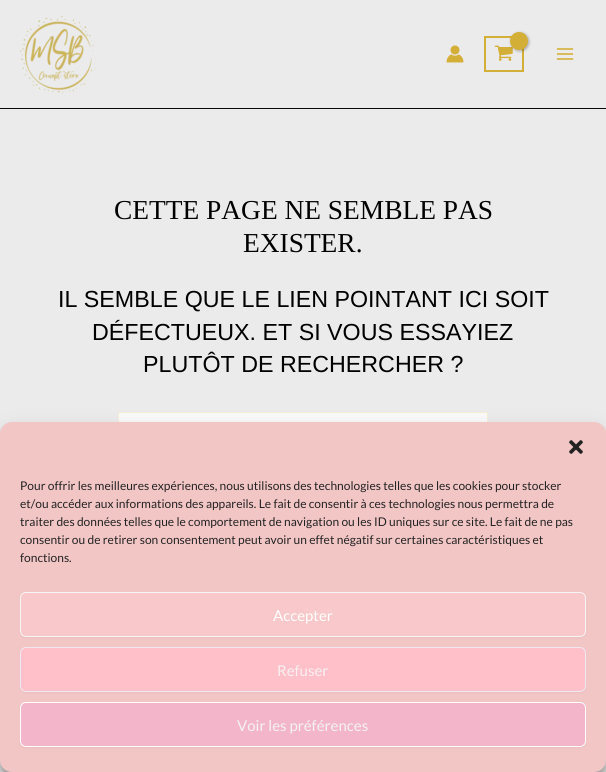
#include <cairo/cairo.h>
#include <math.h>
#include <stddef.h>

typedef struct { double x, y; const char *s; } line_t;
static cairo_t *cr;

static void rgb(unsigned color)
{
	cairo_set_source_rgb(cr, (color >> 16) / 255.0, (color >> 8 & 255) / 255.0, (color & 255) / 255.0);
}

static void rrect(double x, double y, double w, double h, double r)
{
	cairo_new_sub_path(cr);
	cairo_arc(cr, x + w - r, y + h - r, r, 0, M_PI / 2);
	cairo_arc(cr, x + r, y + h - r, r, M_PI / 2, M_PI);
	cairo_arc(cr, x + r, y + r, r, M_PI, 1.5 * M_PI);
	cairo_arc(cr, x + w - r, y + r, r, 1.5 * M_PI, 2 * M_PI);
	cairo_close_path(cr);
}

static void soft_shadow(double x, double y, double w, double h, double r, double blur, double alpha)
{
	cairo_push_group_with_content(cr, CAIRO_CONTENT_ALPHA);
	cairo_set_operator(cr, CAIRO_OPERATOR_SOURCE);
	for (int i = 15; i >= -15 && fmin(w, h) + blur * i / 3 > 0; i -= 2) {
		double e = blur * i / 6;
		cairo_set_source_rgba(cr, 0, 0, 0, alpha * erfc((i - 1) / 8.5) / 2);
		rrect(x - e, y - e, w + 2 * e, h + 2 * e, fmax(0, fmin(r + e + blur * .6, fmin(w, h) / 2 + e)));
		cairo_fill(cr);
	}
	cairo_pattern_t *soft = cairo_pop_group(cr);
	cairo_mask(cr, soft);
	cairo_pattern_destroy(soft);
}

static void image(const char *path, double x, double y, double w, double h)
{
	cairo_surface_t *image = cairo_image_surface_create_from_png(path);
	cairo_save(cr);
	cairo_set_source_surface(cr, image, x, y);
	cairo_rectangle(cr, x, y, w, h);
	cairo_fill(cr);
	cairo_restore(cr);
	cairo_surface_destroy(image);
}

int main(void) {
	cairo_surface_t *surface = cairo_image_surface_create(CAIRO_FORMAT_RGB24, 606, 772);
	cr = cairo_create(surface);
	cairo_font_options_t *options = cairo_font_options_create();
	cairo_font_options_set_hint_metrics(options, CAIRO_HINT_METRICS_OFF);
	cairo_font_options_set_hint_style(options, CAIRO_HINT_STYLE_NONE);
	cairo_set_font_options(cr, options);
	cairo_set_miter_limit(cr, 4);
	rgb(0xebebeb);
	cairo_paint(cr);
	rgb(0x0b0808);
	cairo_rectangle(cr, 0, 108, 606, 1);
	cairo_fill(cr);
	image("img/1.png", 20, 16, 76, 77);
	image("img/2.png", 446, 45, 18, 18);
	cairo_rectangle(cr, 485, 37, 38, 34);
	rgb(0xd4af37);
	cairo_stroke(cr);
	image("img/3.png", 494, 45, 19, 16);
	rgb(0x000000);
	soft_shadow(511, 33, 18, 18, 9, 1.5, 0.3);
	rgb(0xd4af37);
	cairo_arc(cr, 519, 41, 9, 0, 2 * M_PI);
	cairo_fill(cr);
	image("img/4.png", 556, 48, 18, 12);
	rgb(0xfafafa);
	rrect(118.5, 412.5, 369, 39, 1.5);
	cairo_fill_preserve(cr);
	rgb(0xf6efd6);
	cairo_set_line_width(cr, 1);
	cairo_stroke(cr);
	rgb(0x000000);
	soft_shadow(0, 428, 606, 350, 12, 3, 0.23);
	soft_shadow(0, 432, 606, 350, 12, 10, 0.19);
	rgb(0xf3c6c6);
	rrect(0, 422, 606, 350, 12);
	cairo_fill(cr);
	image("img/5.png", 569, 440, 14, 14);
	rgb(0x000000);
	soft_shadow(20, 593, 566, 45, 6, 1, 0.05);
	rgb(0xf9c8ca);
	rrect(20.5, 592.5, 565, 44, 5.5);
	cairo_fill_preserve(cr);
	rgb(0xf7f5f5);
	cairo_stroke(cr);
	rgb(0x000000);
	soft_shadow(20, 648, 566, 45, 6, 1, 0.05);
	rgb(0xffc0ca);
	rrect(20.5, 647.5, 565, 44, 5.5);
	cairo_fill_preserve(cr);
	rgb(0xf0e8f1);
	cairo_stroke(cr);
	rgb(0x000000);
	soft_shadow(20, 703, 566, 45, 6, 1, 0.05);
	rgb(0xf3b5ca);
	rrect(20.5, 702.5, 565, 44, 5.5);
	cairo_fill_preserve(cr);
	rgb(0xffffff);
	cairo_stroke(cr);
	cairo_select_font_face(cr, "Liberation Serif", CAIRO_FONT_SLANT_NORMAL, CAIRO_FONT_WEIGHT_NORMAL);
	cairo_set_font_size(cr, 27.4);
	rgb(0x000000);
	cairo_move_to(cr, 114, 219);
	cairo_show_text(cr, "CETTE PAGE NE SEMBLE PAS");
	cairo_move_to(cr, 243, 252);
	cairo_show_text(cr, "EXISTER.");
	cairo_select_font_face(cr, "Liberation Sans", CAIRO_FONT_SLANT_NORMAL, CAIRO_FONT_WEIGHT_NORMAL);
	cairo_set_font_size(cr, 23.25);
	{
		static const line_t items[] = {
			{58, 307, "IL SEMBLE QUE LE LIEN POINTANT ICI SOIT"},
			{92, 340, "DÉFECTUEUX. ET SI VOUS ESSAYIEZ"},
			{143, 372, "PLUTÔT DE RECHERCHER ?"},
		};
		for (size_t i = 0; i < sizeof items / sizeof *items; i++) {
			cairo_move_to(cr, items[i].x, items[i].y);
			cairo_show_text(cr, items[i].s);
		}
	}
	cairo_select_font_face(cr, "Lato", CAIRO_FONT_SLANT_NORMAL, CAIRO_FONT_WEIGHT_NORMAL);
	cairo_set_font_size(cr, 12);
	rgb(0x222222);
	{
		static const line_t items[] = {
			{20, 490, "Pour offrir les meilleures expériences, nous utilisons des technologies telles que les cookies pour stocker"},
			{20, 508, "et/ou accéder aux informations des appareils. Le fait de consentir à ces technologies nous permettra de"},
			{20, 526, "traiter des données telles que le comportement de navigation ou les ID uniques sur ce site. Le fait de ne pas"},
			{20, 544, "consentir ou de retirer son consentement peut avoir un effet négatif sur certaines caractéristiques et"},
			{20, 562, "fonctions."},
		};
		for (size_t i = 0; i < sizeof items / sizeof *items; i++) {
			cairo_move_to(cr, items[i].x, items[i].y);
			cairo_show_text(cr, items[i].s);
		}
	}
	cairo_set_font_size(cr, 15);
	rgb(0xffffff);
	cairo_move_to(cr, 273, 621);
	cairo_show_text(cr, "Accepter");
	rgb(0xf9f0f0);
	cairo_move_to(cr, 277, 676);
	cairo_show_text(cr, "Refuser");
	rgb(0xf3f3f3);
	cairo_move_to(cr, 237, 731);
	cairo_show_text(cr, "Voir les préférences");
	cairo_surface_write_to_png(surface, "page.png");
	cairo_font_options_destroy(options);
	cairo_destroy(cr);
	cairo_surface_destroy(surface);
	return 0;
}
